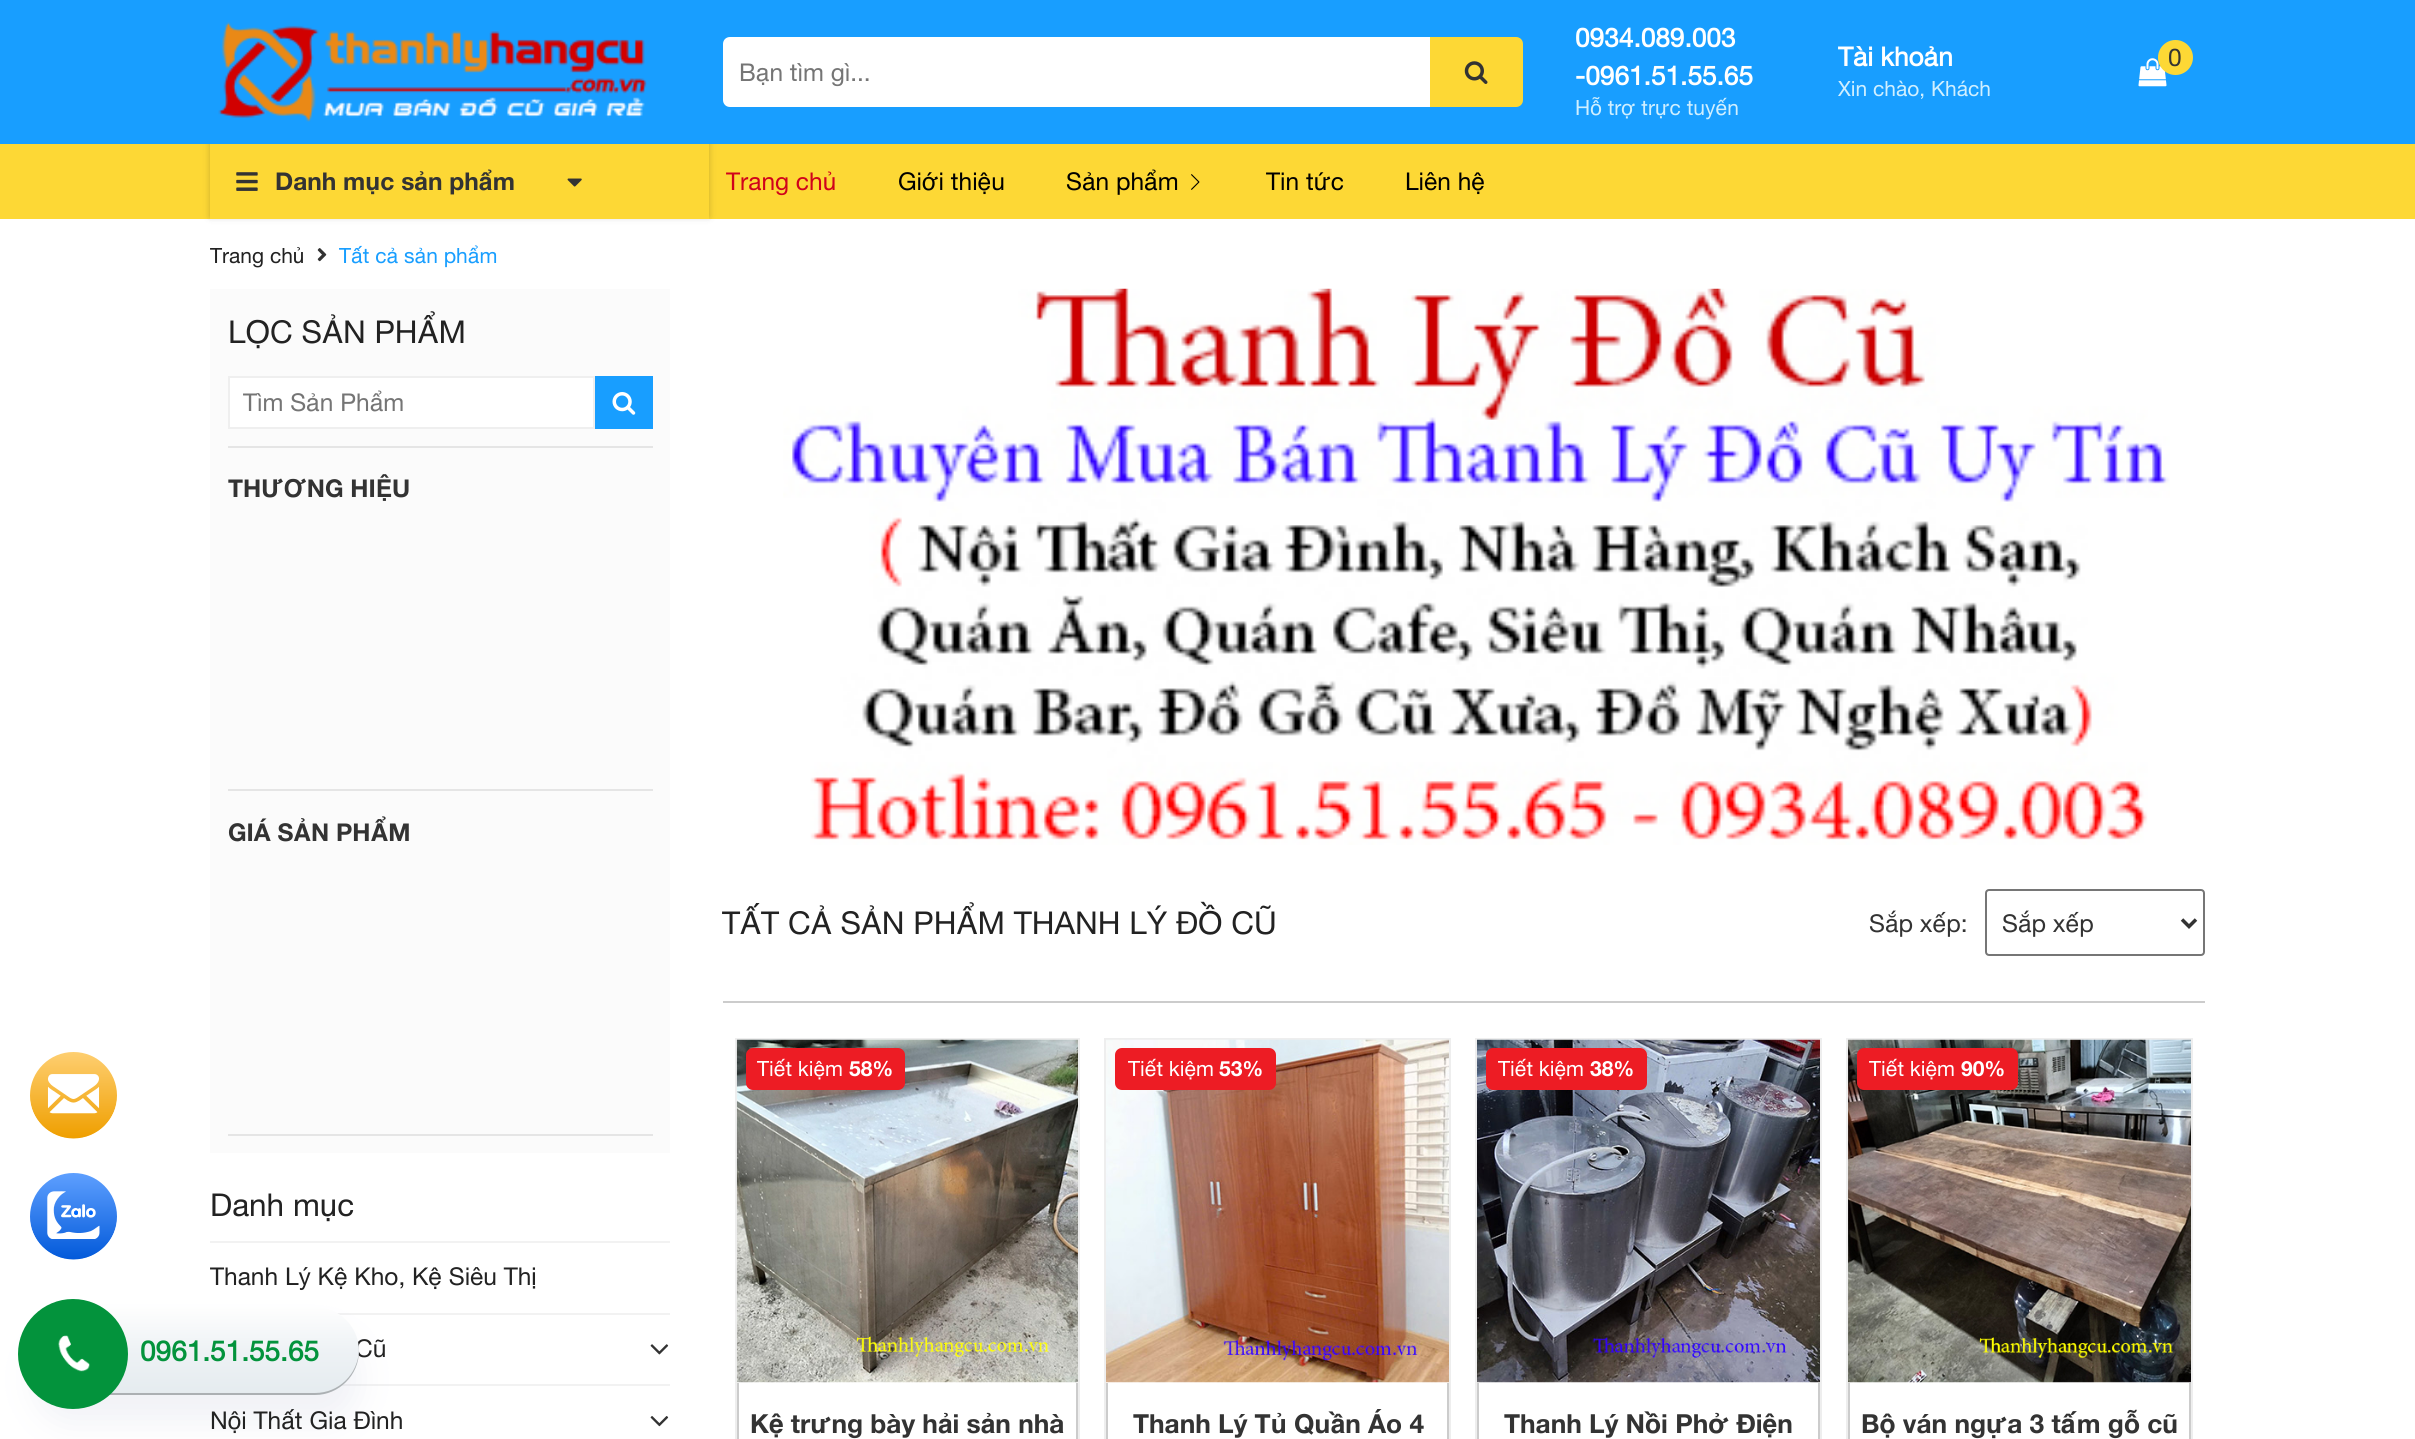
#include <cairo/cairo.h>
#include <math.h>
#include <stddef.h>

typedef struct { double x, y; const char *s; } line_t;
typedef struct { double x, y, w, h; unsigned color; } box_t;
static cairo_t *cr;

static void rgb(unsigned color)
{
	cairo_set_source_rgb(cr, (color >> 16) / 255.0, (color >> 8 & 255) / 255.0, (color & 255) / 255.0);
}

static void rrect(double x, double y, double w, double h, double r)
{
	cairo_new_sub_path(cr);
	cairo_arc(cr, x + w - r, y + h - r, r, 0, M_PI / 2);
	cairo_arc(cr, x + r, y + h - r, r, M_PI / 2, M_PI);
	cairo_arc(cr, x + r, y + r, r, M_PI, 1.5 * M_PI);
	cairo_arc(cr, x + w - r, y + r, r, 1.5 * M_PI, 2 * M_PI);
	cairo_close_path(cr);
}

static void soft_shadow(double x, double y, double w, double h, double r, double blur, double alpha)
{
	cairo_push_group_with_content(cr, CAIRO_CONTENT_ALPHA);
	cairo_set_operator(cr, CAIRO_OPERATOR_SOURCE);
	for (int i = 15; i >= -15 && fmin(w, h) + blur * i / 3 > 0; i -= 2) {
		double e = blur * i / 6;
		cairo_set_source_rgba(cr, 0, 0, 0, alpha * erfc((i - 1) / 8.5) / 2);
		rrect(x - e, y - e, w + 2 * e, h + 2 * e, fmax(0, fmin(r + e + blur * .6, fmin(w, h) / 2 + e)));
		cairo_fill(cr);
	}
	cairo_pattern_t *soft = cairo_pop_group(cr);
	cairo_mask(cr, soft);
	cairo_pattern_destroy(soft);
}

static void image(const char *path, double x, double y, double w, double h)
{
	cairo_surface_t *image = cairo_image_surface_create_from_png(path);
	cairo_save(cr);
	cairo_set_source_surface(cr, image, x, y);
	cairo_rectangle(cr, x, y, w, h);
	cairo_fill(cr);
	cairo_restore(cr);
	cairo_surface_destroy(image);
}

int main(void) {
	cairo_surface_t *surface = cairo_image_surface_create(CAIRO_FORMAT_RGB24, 2415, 1439);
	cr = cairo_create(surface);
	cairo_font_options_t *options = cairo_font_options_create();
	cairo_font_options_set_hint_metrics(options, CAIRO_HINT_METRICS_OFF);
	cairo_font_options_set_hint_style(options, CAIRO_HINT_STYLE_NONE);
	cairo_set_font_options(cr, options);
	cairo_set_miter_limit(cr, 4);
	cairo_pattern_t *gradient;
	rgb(0xfdd835);
	cairo_paint(cr);
	rgb(0xffffff);
	cairo_rectangle(cr, 0, 219, 2415, 1220);
	cairo_fill(cr);
	image("img/1.png", 30, 1052, 87, 87);
	image("img/2.png", 30, 1173, 87, 87);
	cairo_save(cr);
	cairo_set_fill_rule(cr, CAIRO_FILL_RULE_EVEN_ODD);
	cairo_new_path(cr);
	cairo_move_to(cr, 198, 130);
	cairo_line_to(cr, 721, 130);
	cairo_line_to(cr, 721, 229);
	cairo_line_to(cr, 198, 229);
	cairo_close_path(cr);
	cairo_move_to(cr, 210, 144);
	cairo_line_to(cr, 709, 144);
	cairo_line_to(cr, 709, 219);
	cairo_line_to(cr, 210, 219);
	cairo_close_path(cr);
	cairo_clip(cr);
	rgb(0x000000);
	soft_shadow(210, 142, 499, 75, 0, 3.5, 0.2);
	cairo_restore(cr);
	rgb(0x189eff);
	cairo_rectangle(cr, 0, 0, 2415, 144);
	cairo_fill(cr);
	image("img/3.png", 218, 22, 429, 100);
	rgb(0xffffff);
	cairo_new_path(cr);
	cairo_move_to(cr, 730, 37);
	cairo_line_to(cr, 1432, 37);
	cairo_line_to(cr, 1432, 107);
	cairo_line_to(cr, 730, 107);
	cairo_curve_to(cr, 726, 107, 723, 104, 723, 100);
	cairo_line_to(cr, 723, 44);
	cairo_curve_to(cr, 723, 40, 726, 37, 730, 37);
	cairo_close_path(cr);
	cairo_fill(cr);
	rgb(0xfdd835);
	cairo_new_path(cr);
	cairo_move_to(cr, 1430, 37);
	cairo_line_to(cr, 1516, 37);
	cairo_curve_to(cr, 1520, 37, 1523, 40, 1523, 44);
	cairo_line_to(cr, 1523, 100);
	cairo_curve_to(cr, 1523, 104, 1520, 107, 1516, 107);
	cairo_line_to(cr, 1430, 107);
	cairo_close_path(cr);
	cairo_fill(cr);
	image("img/4.png", 1464, 61, 24, 23);
	image("img/5.png", 2138, 58, 29, 29);
	cairo_arc(cr, 2175.5, 57.5, 17.5, 0, 2 * M_PI);
	cairo_fill(cr);
	image("img/6.png", 236, 172, 22, 19);
	image("img/7.png", 567, 178, 15, 9);
	image("img/8.png", 1191, 174, 9, 16);
	image("img/9.png", 317, 248, 10, 14);
	rgb(0xfbfbfb);
	cairo_rectangle(cr, 210, 289, 460, 864);
	cairo_fill(cr);
	rgb(0xe5e5e5);
	cairo_rectangle(cr, 228, 446, 425, 2);
	cairo_fill(cr);
	rgb(0xffffff);
	cairo_rectangle(cr, 229, 377, 365, 51);
	cairo_fill_preserve(cr);
	rgb(0xefefef);
	cairo_stroke(cr);
	rgb(0x189eff);
	cairo_rectangle(cr, 595, 376, 58, 53);
	cairo_fill(cr);
	image("img/10.png", 612, 392, 24, 23);
	{
		static const box_t items[] = {
			{228, 789, 425, 2, 0xe5e5e5},
			{228, 1134, 425, 2, 0xe5e5e5},
			{210, 1241, 460, 2, 0xf2f2f2},
			{337, 1313, 333, 2, 0xf2f2f2},
			{341, 1384, 329, 2, 0xf2f2f2},
		};
		for (size_t i = 0; i < sizeof items / sizeof *items; i++) {
			rgb(items[i].color);
			cairo_rectangle(cr, items[i].x, items[i].y, items[i].w, items[i].h);
			cairo_fill(cr);
		}
	}
	image("img/11.png", 650, 1344, 19, 11);
	image("img/12.png", 650, 1416, 19, 11);
	image("img/13.png", 783, 288, 1387, 557);
	rgb(0xcccccc);
	cairo_rectangle(cr, 723, 1001, 1482, 2);
	cairo_fill(cr);
	rrect(1986, 890, 218, 65, 3);
	rgb(0x767676);
	cairo_stroke(cr);
	cairo_new_path(cr);
	cairo_move_to(cr, 2182, 919.5);
	cairo_line_to(cr, 2189, 926.5);
	cairo_line_to(cr, 2196, 919.5);
	rgb(0x333333);
	cairo_set_line_width(cr, 3.5);
	cairo_stroke(cr);
	cairo_rectangle(cr, 736, 1039, 343, 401);
	rgb(0xeeeeee);
	cairo_set_line_width(cr, 2);
	cairo_stroke(cr);
	image("img/14.png", 736, 1039, 342, 344);
	rgb(0xed1c24);
	rrect(746, 1048, 159, 42, 7);
	cairo_fill(cr);
	rgb(0xcccccc);
	cairo_rectangle(cr, 1076, 1383, 2, 56);
	cairo_fill(cr);
	cairo_rectangle(cr, 737, 1383, 2, 56);
	cairo_fill(cr);
	cairo_rectangle(cr, 1105, 1039, 345, 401);
	rgb(0xeeeeee);
	cairo_stroke(cr);
	image("img/15.png", 1106, 1039, 343, 344);
	rgb(0xed1c24);
	rrect(1115, 1048, 161, 42, 7);
	cairo_fill(cr);
	rgb(0xcccccc);
	cairo_rectangle(cr, 1447, 1383, 2, 56);
	cairo_fill(cr);
	cairo_rectangle(cr, 1106, 1383, 2, 56);
	cairo_fill(cr);
	cairo_rectangle(cr, 1476, 1039, 345, 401);
	rgb(0xeeeeee);
	cairo_stroke(cr);
	image("img/16.png", 1477, 1039, 343, 344);
	rgb(0xed1c24);
	rrect(1486, 1048, 161, 42, 7);
	cairo_fill(cr);
	rgb(0xcccccc);
	cairo_rectangle(cr, 1818, 1383, 2, 56);
	cairo_fill(cr);
	cairo_rectangle(cr, 1477, 1383, 2, 56);
	cairo_fill(cr);
	cairo_rectangle(cr, 1847, 1039, 345, 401);
	rgb(0xeeeeee);
	cairo_stroke(cr);
	image("img/17.png", 1848, 1039, 343, 344);
	rgb(0xed1c24);
	rrect(1857, 1048, 161, 42, 7);
	cairo_fill(cr);
	rgb(0xcccccc);
	cairo_rectangle(cr, 2189, 1383, 2, 56);
	cairo_fill(cr);
	cairo_rectangle(cr, 1848, 1383, 2, 56);
	cairo_fill(cr);
	rgb(0xbabdd4);
	soft_shadow(35, 1335, 324, 88, 44, 16.5, 0.2);
	cairo_select_font_face(cr, "Helvetica Neue", CAIRO_FONT_SLANT_NORMAL, CAIRO_FONT_WEIGHT_NORMAL);
	cairo_set_font_size(cr, 24.5);
	rgb(0x757575);
	cairo_move_to(cr, 739, 81);
	cairo_show_text(cr, "Bạn tìm gì...");
	cairo_select_font_face(cr, "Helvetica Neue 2", CAIRO_FONT_SLANT_NORMAL, CAIRO_FONT_WEIGHT_BOLD);
	cairo_set_font_size(cr, 26.25);
	rgb(0xffffff);
	cairo_move_to(cr, 1575, 47);
	cairo_show_text(cr, "0934.089.003");
	cairo_move_to(cr, 1575, 85);
	cairo_show_text(cr, "-0961.51.55.65");
	cairo_select_font_face(cr, "Helvetica Neue", CAIRO_FONT_SLANT_NORMAL, CAIRO_FONT_WEIGHT_NORMAL);
	cairo_set_font_size(cr, 21);
	rgb(0xd0efff);
	cairo_move_to(cr, 1575, 115);
	cairo_show_text(cr, "Hỗ trợ trực tuyến");
	cairo_select_font_face(cr, "Helvetica Neue 2", CAIRO_FONT_SLANT_NORMAL, CAIRO_FONT_WEIGHT_BOLD);
	cairo_set_font_size(cr, 26.25);
	rgb(0xffffff);
	cairo_move_to(cr, 1838, 66);
	cairo_show_text(cr, "Tài khoản");
	cairo_select_font_face(cr, "Helvetica Neue", CAIRO_FONT_SLANT_NORMAL, CAIRO_FONT_WEIGHT_NORMAL);
	cairo_set_font_size(cr, 21);
	rgb(0xd0efff);
	cairo_move_to(cr, 1838, 96);
	cairo_show_text(cr, "Xin chào, Khách");
	cairo_set_font_size(cr, 24.5);
	rgb(0x333333);
	cairo_move_to(cr, 2168, 66);
	cairo_show_text(cr, "0");
	cairo_select_font_face(cr, "Helvetica Neue", CAIRO_FONT_SLANT_NORMAL, CAIRO_FONT_WEIGHT_BOLD);
	cairo_move_to(cr, 275, 190);
	cairo_show_text(cr, "Danh mục sản phẩm");
	cairo_select_font_face(cr, "Helvetica Neue", CAIRO_FONT_SLANT_NORMAL, CAIRO_FONT_WEIGHT_NORMAL);
	rgb(0xd0021b);
	cairo_move_to(cr, 726, 190);
	cairo_show_text(cr, "Trang chủ");
	rgb(0x000000);
	{
		static const line_t items[] = {
			{898, 190, "Giới thiệu"},
			{1066, 190, "Sản phẩm"},
			{1266, 190, "Tin tức"},
			{1405, 190, "Liên hệ"},
		};
		for (size_t i = 0; i < sizeof items / sizeof *items; i++) {
			cairo_move_to(cr, items[i].x, items[i].y);
			cairo_show_text(cr, items[i].s);
		}
	}
	cairo_set_font_size(cr, 21);
	rgb(0x222222);
	cairo_move_to(cr, 210, 263);
	cairo_show_text(cr, "Trang chủ");
	rgb(0x189eff);
	cairo_move_to(cr, 339, 263);
	cairo_show_text(cr, "Tất cả sản phẩm");
	cairo_set_font_size(cr, 31.5);
	rgb(0x222222);
	cairo_move_to(cr, 228, 343);
	cairo_show_text(cr, "LỌC SẢN PHẨM");
	cairo_set_font_size(cr, 24.5);
	rgb(0x757575);
	cairo_move_to(cr, 243, 411);
	cairo_show_text(cr, "Tìm Sản Phẩm");
	cairo_select_font_face(cr, "Helvetica Neue", CAIRO_FONT_SLANT_NORMAL, CAIRO_FONT_WEIGHT_BOLD);
	rgb(0x333333);
	cairo_move_to(cr, 228, 497);
	cairo_show_text(cr, "THƯƠNG HIỆU");
	cairo_move_to(cr, 228, 841);
	cairo_show_text(cr, "GIÁ SẢN PHẨM");
	cairo_select_font_face(cr, "Helvetica Neue", CAIRO_FONT_SLANT_NORMAL, CAIRO_FONT_WEIGHT_NORMAL);
	cairo_set_font_size(cr, 31.5);
	rgb(0x222222);
	cairo_move_to(cr, 210, 1216);
	cairo_show_text(cr, "Danh mục");
	cairo_set_font_size(cr, 24.5);
	{
		static const line_t items[] = {
			{210, 1285, "Thanh Lý Kệ Kho, Kệ Siêu Thị"},
			{355, 1357, "Cũ"},
			{210, 1429, "Nội Thất Gia Đình"},
		};
		for (size_t i = 0; i < sizeof items / sizeof *items; i++) {
			cairo_move_to(cr, items[i].x, items[i].y);
			cairo_show_text(cr, items[i].s);
		}
	}
	cairo_set_font_size(cr, 31.5);
	cairo_move_to(cr, 722, 934);
	cairo_show_text(cr, "TẤT CẢ SẢN PHẨM THANH LÝ ĐỒ CŨ");
	cairo_set_font_size(cr, 24.5);
	rgb(0x333333);
	cairo_move_to(cr, 1869, 932);
	cairo_show_text(cr, "Sắp xếp:");
	cairo_move_to(cr, 2002, 932);
	cairo_show_text(cr, "Sắp xếp");
	cairo_set_font_size(cr, 21);
	rgb(0xffffff);
	cairo_move_to(cr, 757, 1076);
	cairo_show_text(cr, "Tiết kiệm");
	cairo_select_font_face(cr, "Helvetica Neue", CAIRO_FONT_SLANT_NORMAL, CAIRO_FONT_WEIGHT_BOLD);
	cairo_move_to(cr, 849, 1076);
	cairo_show_text(cr, "58%");
	cairo_set_font_size(cr, 26.25);
	rgb(0x333333);
	cairo_move_to(cr, 750, 1433);
	cairo_show_text(cr, "Kệ trưng bày hải sản nhà");
	cairo_select_font_face(cr, "Helvetica Neue", CAIRO_FONT_SLANT_NORMAL, CAIRO_FONT_WEIGHT_NORMAL);
	cairo_set_font_size(cr, 21);
	rgb(0xffffff);
	cairo_move_to(cr, 1128, 1076);
	cairo_show_text(cr, "Tiết kiệm");
	cairo_select_font_face(cr, "Helvetica Neue", CAIRO_FONT_SLANT_NORMAL, CAIRO_FONT_WEIGHT_BOLD);
	cairo_move_to(cr, 1219, 1076);
	cairo_show_text(cr, "53%");
	cairo_save(cr);
	cairo_rectangle(cr, 1117, 1409, 322, 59);
	cairo_clip(cr);
	cairo_set_font_size(cr, 26.25);
	rgb(0x333333);
	cairo_move_to(cr, 1133, 1433);
	cairo_show_text(cr, "Thanh Lý Tủ Quần Áo 4");
	cairo_restore(cr);
	cairo_select_font_face(cr, "Helvetica Neue", CAIRO_FONT_SLANT_NORMAL, CAIRO_FONT_WEIGHT_NORMAL);
	cairo_move_to(cr, 1498, 1076);
	cairo_show_text(cr, "Tiết kiệm");
	cairo_select_font_face(cr, "Helvetica Neue", CAIRO_FONT_SLANT_NORMAL, CAIRO_FONT_WEIGHT_BOLD);
	cairo_move_to(cr, 1590, 1076);
	cairo_show_text(cr, "38%");
	cairo_set_font_size(cr, 26.25);
	rgb(0x333333);
	cairo_move_to(cr, 1504, 1433);
	cairo_show_text(cr, "Thanh Lý Nồi Phở Điện");
	cairo_select_font_face(cr, "Helvetica Neue", CAIRO_FONT_SLANT_NORMAL, CAIRO_FONT_WEIGHT_NORMAL);
	cairo_set_font_size(cr, 21);
	rgb(0xffffff);
	cairo_move_to(cr, 1869, 1076);
	cairo_show_text(cr, "Tiết kiệm");
	cairo_select_font_face(cr, "Helvetica Neue", CAIRO_FONT_SLANT_NORMAL, CAIRO_FONT_WEIGHT_BOLD);
	cairo_move_to(cr, 1961, 1076);
	cairo_show_text(cr, "90%");
	cairo_set_font_size(cr, 26.25);
	rgb(0x333333);
	cairo_move_to(cr, 1861, 1433);
	cairo_show_text(cr, "Bộ ván ngựa 3 tấm gỗ cũ");
	gradient = cairo_pattern_create_linear(197, 1395, 197, 1307);
	cairo_pattern_add_color_stop_rgba(gradient, 0, 0.898, 0.922, 0.937, 1);
	cairo_pattern_add_color_stop_rgba(gradient, 0.51, 0.933, 0.949, 0.961, 1);
	cairo_pattern_add_color_stop_rgba(gradient, 1, 0.996, 0.996, 0.996, 1);
	cairo_set_source(cr, gradient);
	cairo_pattern_destroy(gradient);
	rrect(35, 1307, 324, 88, 44);
	cairo_fill(cr);
	cairo_set_source_rgba(cr, 0, 0, 0, 0.25);
	cairo_new_path(cr);
	cairo_move_to(cr, 35, 1350);
	cairo_line_to(cr, 35, 1351);
	cairo_curve_to(cr, 35, 1375, 55, 1395, 79, 1395);
	cairo_line_to(cr, 315, 1395);
	cairo_curve_to(cr, 339, 1395, 359, 1375, 359, 1351);
	cairo_line_to(cr, 359, 1350);
	cairo_curve_to(cr, 358, 1374, 339, 1393, 315, 1393);
	cairo_line_to(cr, 79, 1393);
	cairo_curve_to(cr, 55, 1393, 36, 1374, 35, 1350);
	cairo_close_path(cr);
	cairo_fill(cr);
	rgb(0x03933c);
	cairo_arc(cr, 73, 1354, 55, 0, 2 * M_PI);
	cairo_fill(cr);
	image("img/18.png", 58, 1335, 32, 37);
	cairo_select_font_face(cr, "Helvetica Neue 2", CAIRO_FONT_SLANT_NORMAL, CAIRO_FONT_WEIGHT_BOLD);
	cairo_set_font_size(cr, 28);
	cairo_move_to(cr, 140, 1361);
	cairo_show_text(cr, "0961.51.55.65");
	cairo_surface_write_to_png(surface, "page.png");
	cairo_font_options_destroy(options);
	cairo_destroy(cr);
	cairo_surface_destroy(surface);
	return 0;
}
